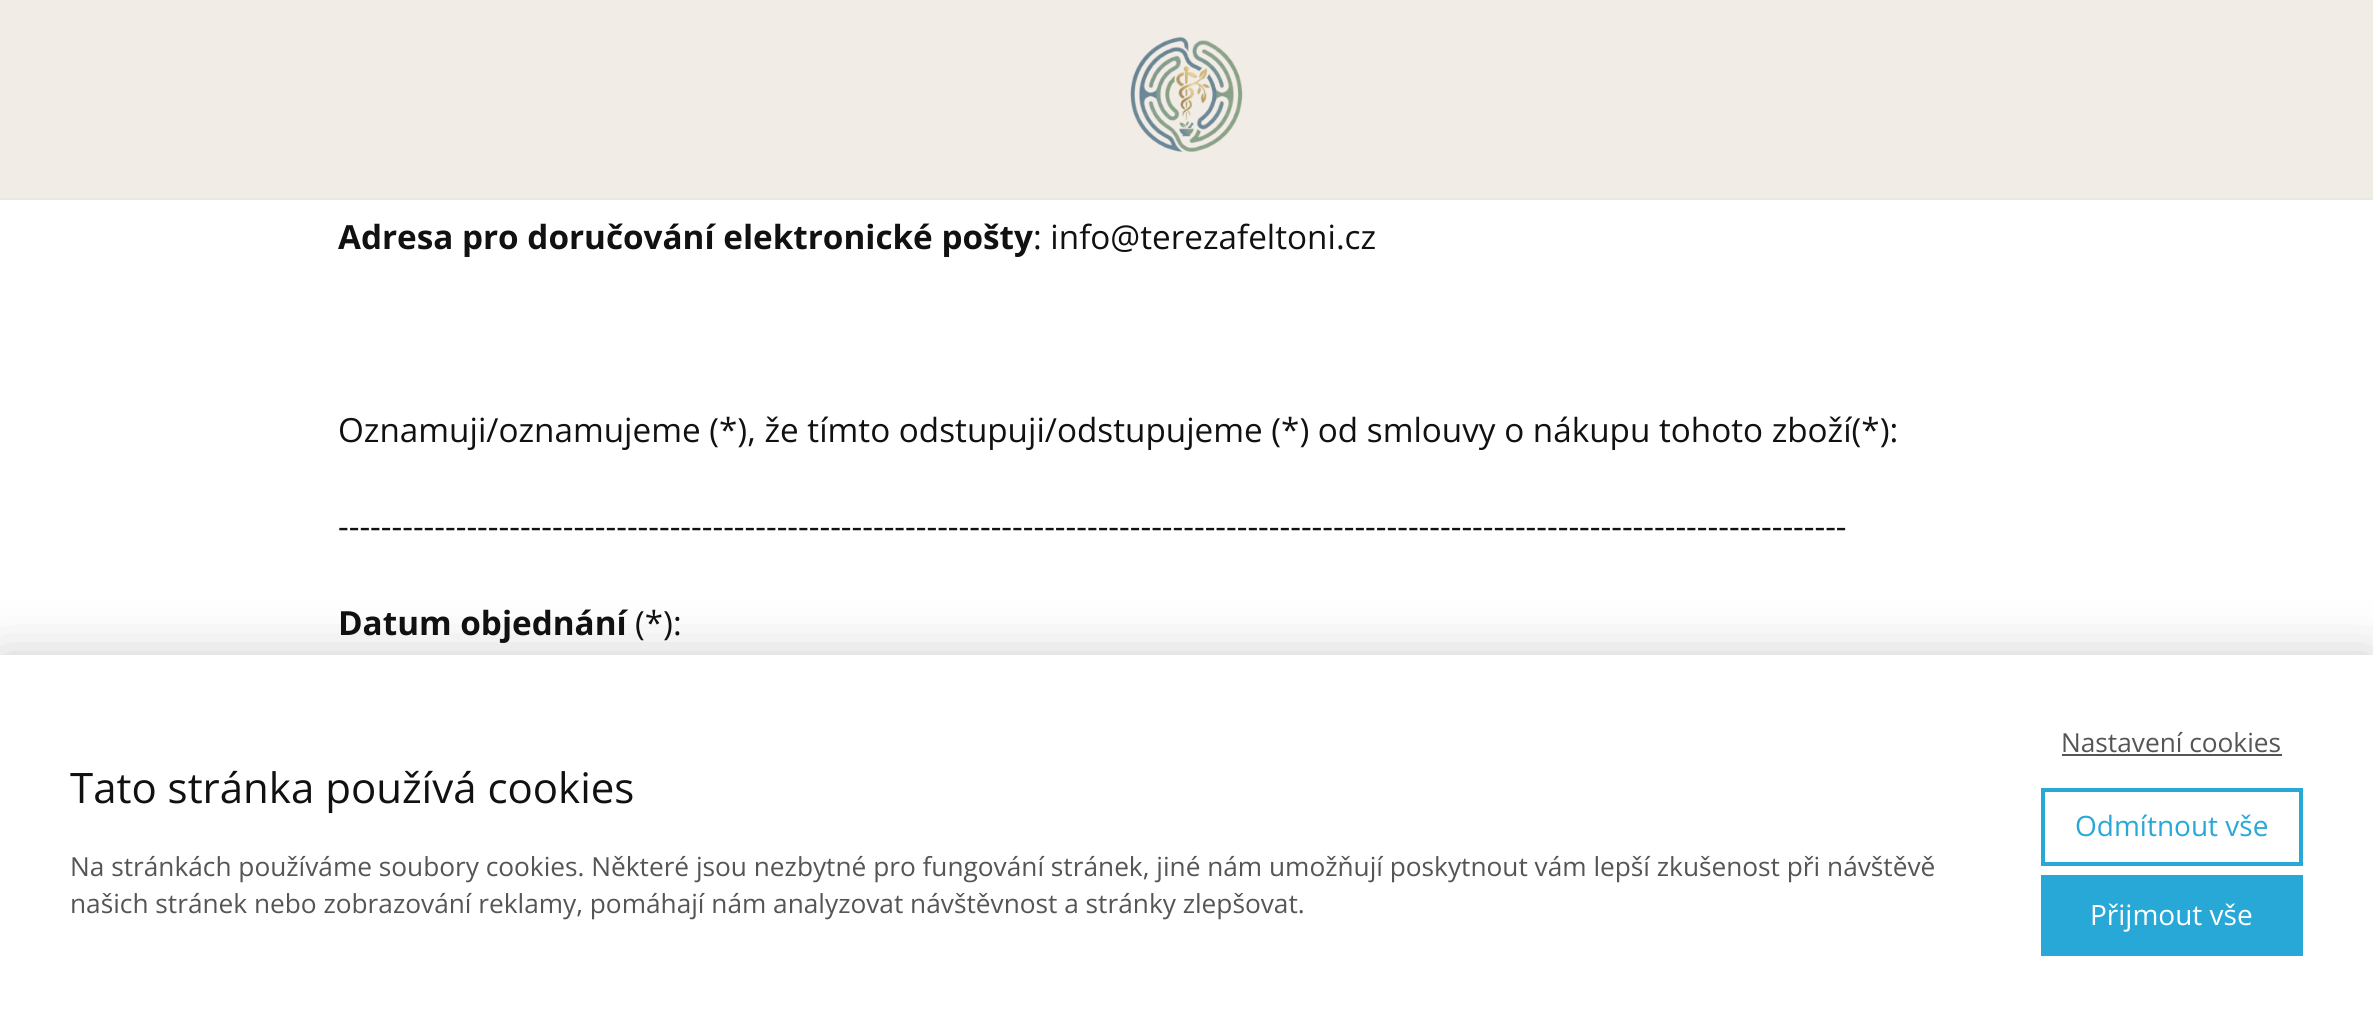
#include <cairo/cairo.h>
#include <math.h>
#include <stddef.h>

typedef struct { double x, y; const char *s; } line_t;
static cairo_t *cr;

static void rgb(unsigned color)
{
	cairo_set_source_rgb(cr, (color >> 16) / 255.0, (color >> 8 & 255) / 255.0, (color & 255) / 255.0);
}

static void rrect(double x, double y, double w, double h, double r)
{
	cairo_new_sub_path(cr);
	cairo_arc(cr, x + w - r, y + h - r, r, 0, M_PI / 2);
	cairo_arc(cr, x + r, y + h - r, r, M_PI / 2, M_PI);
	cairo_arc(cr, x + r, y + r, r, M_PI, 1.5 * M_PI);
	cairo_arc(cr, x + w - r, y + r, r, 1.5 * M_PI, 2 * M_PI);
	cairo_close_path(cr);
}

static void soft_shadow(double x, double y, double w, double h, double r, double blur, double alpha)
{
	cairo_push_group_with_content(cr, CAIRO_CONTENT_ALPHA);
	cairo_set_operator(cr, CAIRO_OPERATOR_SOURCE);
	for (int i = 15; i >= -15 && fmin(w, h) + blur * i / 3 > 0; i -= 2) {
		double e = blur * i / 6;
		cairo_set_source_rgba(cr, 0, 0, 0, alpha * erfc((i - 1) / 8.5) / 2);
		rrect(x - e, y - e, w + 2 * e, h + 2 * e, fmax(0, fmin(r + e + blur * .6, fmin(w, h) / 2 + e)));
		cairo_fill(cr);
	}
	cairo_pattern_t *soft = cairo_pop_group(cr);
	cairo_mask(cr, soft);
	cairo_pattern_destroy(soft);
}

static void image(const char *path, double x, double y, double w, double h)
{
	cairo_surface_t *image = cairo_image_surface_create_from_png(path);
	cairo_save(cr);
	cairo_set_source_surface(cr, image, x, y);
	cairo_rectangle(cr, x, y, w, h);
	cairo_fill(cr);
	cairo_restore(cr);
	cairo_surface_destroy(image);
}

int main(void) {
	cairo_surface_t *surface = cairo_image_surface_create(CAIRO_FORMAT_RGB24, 2373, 1025);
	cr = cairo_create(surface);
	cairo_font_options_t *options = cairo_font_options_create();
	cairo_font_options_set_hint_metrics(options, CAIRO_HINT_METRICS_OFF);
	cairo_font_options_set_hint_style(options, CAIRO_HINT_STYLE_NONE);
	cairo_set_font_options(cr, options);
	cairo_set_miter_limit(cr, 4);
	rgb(0xffffff);
	cairo_paint(cr);
	rgb(0xf1ece6);
	cairo_rectangle(cr, 0, 0, 2373, 198);
	cairo_fill(cr);
	rgb(0xe8e8e8);
	cairo_rectangle(cr, 0, 198, 2373, 2);
	cairo_fill(cr);
	image("img/1.png", 1130, 36, 113, 117);
	rgb(0x000000);
	soft_shadow(0, 655, 2373, 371, 0, 26, 0.2);
	rgb(0xffffff);
	cairo_rectangle(cr, 0, 655, 2373, 370);
	cairo_fill(cr);
	rgb(0x555555);
	cairo_rectangle(cr, 2062, 754, 220, 2);
	cairo_fill(cr);
	cairo_rectangle(cr, 2043, 790, 258, 74);
	rgb(0x27a8d7);
	cairo_set_line_width(cr, 4);
	cairo_stroke(cr);
	cairo_rectangle(cr, 2041, 875, 262, 81);
	cairo_fill(cr);
	cairo_select_font_face(cr, "Open Sans", CAIRO_FONT_SLANT_NORMAL, CAIRO_FONT_WEIGHT_BOLD);
	cairo_set_font_size(cr, 33.25);
	rgb(0x111111);
	cairo_move_to(cr, 338, 249);
	cairo_show_text(cr, "Adresa pro doručování elektronické pošty");
	cairo_select_font_face(cr, "Open Sans", CAIRO_FONT_SLANT_NORMAL, CAIRO_FONT_WEIGHT_NORMAL);
	{
		static const line_t items[] = {
			{1033, 249, ": info@terezafeltoni.cz"},
			{338, 442, "Oznamuji/oznamujeme (*), že tímto odstupuji/odstupujeme (*) od smlouvy o nákupu tohoto zboží(*):"},
			{338, 538, "---------------------------------------------------------------------------------------------------------------------------------------------"},
		};
		for (size_t i = 0; i < sizeof items / sizeof *items; i++) {
			cairo_move_to(cr, items[i].x, items[i].y);
			cairo_show_text(cr, items[i].s);
		}
	}
	cairo_select_font_face(cr, "Open Sans", CAIRO_FONT_SLANT_NORMAL, CAIRO_FONT_WEIGHT_BOLD);
	cairo_move_to(cr, 338, 635);
	cairo_show_text(cr, "Datum objednání");
	cairo_select_font_face(cr, "Open Sans", CAIRO_FONT_SLANT_NORMAL, CAIRO_FONT_WEIGHT_NORMAL);
	cairo_move_to(cr, 635, 635);
	cairo_show_text(cr, "(*):");
	cairo_set_font_size(cr, 42);
	cairo_move_to(cr, 70, 803);
	cairo_show_text(cr, "Tato stránka používá cookies");
	cairo_set_font_size(cr, 26.25);
	rgb(0x555555);
	{
		static const line_t items[] = {
			{70, 876, "Na stránkách používáme soubory cookies. Některé jsou nezbytné pro fungování stránek, jiné nám umožňují poskytnout vám lepší zkušenost při návštěvě"},
			{70, 913, "našich stránek nebo zobrazování reklamy, pomáhají nám analyzovat návštěvnost a stránky zlepšovat."},
			{2061, 752, "Nastavení cookies"},
		};
		for (size_t i = 0; i < sizeof items / sizeof *items; i++) {
			cairo_move_to(cr, items[i].x, items[i].y);
			cairo_show_text(cr, items[i].s);
		}
	}
	cairo_set_font_size(cr, 28);
	rgb(0x27a8d7);
	cairo_move_to(cr, 2075, 836);
	cairo_show_text(cr, "Odmítnout vše");
	rgb(0xffffff);
	cairo_move_to(cr, 2090, 925);
	cairo_show_text(cr, "Přijmout vše");
	cairo_surface_write_to_png(surface, "page.png");
	cairo_font_options_destroy(options);
	cairo_destroy(cr);
	cairo_surface_destroy(surface);
	return 0;
}
